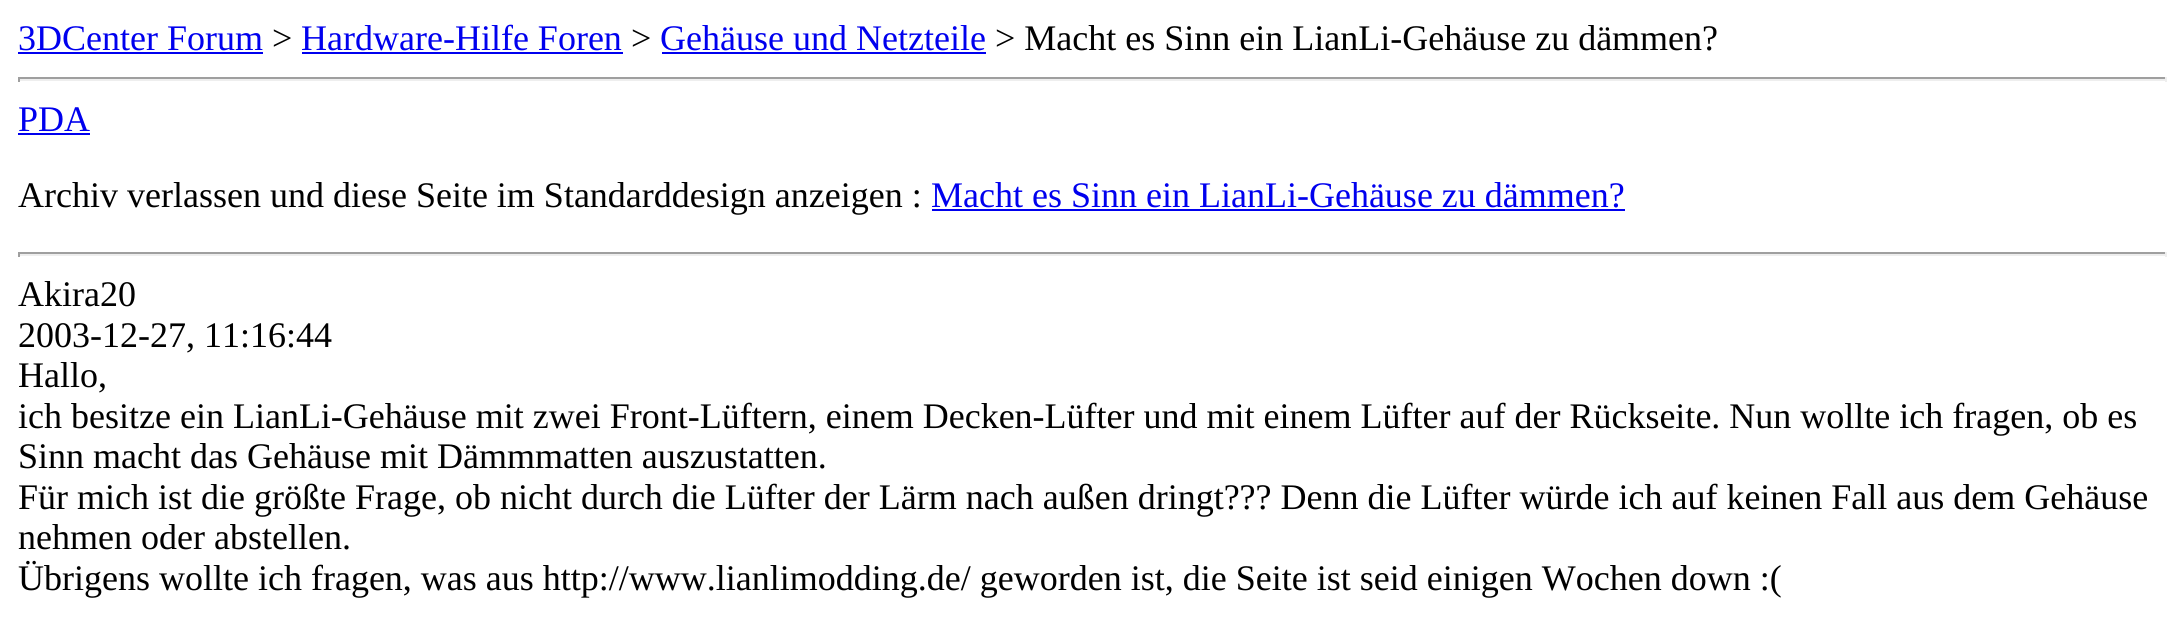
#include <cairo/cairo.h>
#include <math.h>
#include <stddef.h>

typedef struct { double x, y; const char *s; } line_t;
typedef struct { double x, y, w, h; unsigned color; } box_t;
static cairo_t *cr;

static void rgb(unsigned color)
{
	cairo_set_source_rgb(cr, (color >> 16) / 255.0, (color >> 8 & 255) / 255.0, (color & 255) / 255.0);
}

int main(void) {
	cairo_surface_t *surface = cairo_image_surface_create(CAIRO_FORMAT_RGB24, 2183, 622);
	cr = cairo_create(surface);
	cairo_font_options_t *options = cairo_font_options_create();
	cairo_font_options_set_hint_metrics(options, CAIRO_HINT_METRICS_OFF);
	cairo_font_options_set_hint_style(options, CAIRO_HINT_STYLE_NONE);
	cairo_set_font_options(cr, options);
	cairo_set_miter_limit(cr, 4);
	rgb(0xffffff);
	cairo_paint(cr);
	{
		static const box_t items[] = {
			{18, 52, 245, 2, 0x0000ee},
			{302, 52, 321, 2, 0x0000ee},
			{662, 52, 324, 2, 0x0000ee},
			{18, 77, 2149, 2, 0x9f9f9f},
			{2165, 77, 2, 5, 0xeeeeee},
			{18, 79, 2149, 2, 0xeeeeee},
			{18, 77, 2, 5, 0x9f9f9f},
			{18, 133, 72, 2, 0x0000ee},
			{932, 209, 693, 2, 0x0000ee},
			{18, 252, 2149, 2, 0x9f9f9f},
			{2165, 252, 2, 5, 0xeeeeee},
			{18, 254, 2149, 2, 0xeeeeee},
			{18, 252, 2, 5, 0x9f9f9f},
		};
		for (size_t i = 0; i < sizeof items / sizeof *items; i++) {
			rgb(items[i].color);
			cairo_rectangle(cr, items[i].x, items[i].y, items[i].w, items[i].h);
			cairo_fill(cr);
		}
	}
	cairo_select_font_face(cr, "Liberation Serif", CAIRO_FONT_SLANT_NORMAL, CAIRO_FONT_WEIGHT_NORMAL);
	cairo_set_font_size(cr, 36);
	rgb(0x0000ee);
	cairo_move_to(cr, 18, 50);
	cairo_show_text(cr, "3DCenter Forum");
	rgb(0x000000);
	cairo_move_to(cr, 272, 50);
	cairo_show_text(cr, ">");
	rgb(0x0000ee);
	cairo_move_to(cr, 301, 50);
	cairo_show_text(cr, "Hardware-Hilfe Foren");
	rgb(0x000000);
	cairo_move_to(cr, 631, 50);
	cairo_show_text(cr, ">");
	rgb(0x0000ee);
	cairo_move_to(cr, 660, 50);
	cairo_show_text(cr, "Gehäuse und Netzteile");
	rgb(0x000000);
	cairo_move_to(cr, 995, 50);
	cairo_show_text(cr, "> Macht es Sinn ein LianLi-Gehäuse zu dämmen?");
	rgb(0x0000ee);
	cairo_move_to(cr, 18, 131);
	cairo_show_text(cr, "PDA");
	rgb(0x000000);
	cairo_move_to(cr, 18, 207);
	cairo_show_text(cr, "Archiv verlassen und diese Seite im Standarddesign anzeigen :");
	rgb(0x0000ee);
	cairo_move_to(cr, 931, 207);
	cairo_show_text(cr, "Macht es Sinn ein LianLi-Gehäuse zu dämmen?");
	rgb(0x000000);
	{
		static const line_t items[] = {
			{18, 306, "Akira20"},
			{18, 347, "2003-12-27, 11:16:44"},
			{18, 387, "Hallo,"},
			{18, 428, "ich besitze ein LianLi-Gehäuse mit zwei Front-Lüftern, einem Decken-Lüfter und mit einem Lüfter auf der Rückseite. Nun wollte ich fragen, ob es"},
			{18, 468, "Sinn macht das Gehäuse mit Dämmmatten auszustatten."},
			{18, 509, "Für mich ist die größte Frage, ob nicht durch die Lüfter der Lärm nach außen dringt?\077? Denn die Lüfter würde ich auf keinen Fall aus dem Gehäuse"},
			{18, 549, "nehmen oder abstellen."},
			{18, 590, "Übrigens wollte ich fragen, was aus http://www.lianlimodding.de/ geworden ist, die Seite ist seid einigen Wochen down :("},
		};
		for (size_t i = 0; i < sizeof items / sizeof *items; i++) {
			cairo_move_to(cr, items[i].x, items[i].y);
			cairo_show_text(cr, items[i].s);
		}
	}
	cairo_surface_write_to_png(surface, "page.png");
	cairo_font_options_destroy(options);
	cairo_destroy(cr);
	cairo_surface_destroy(surface);
	return 0;
}
